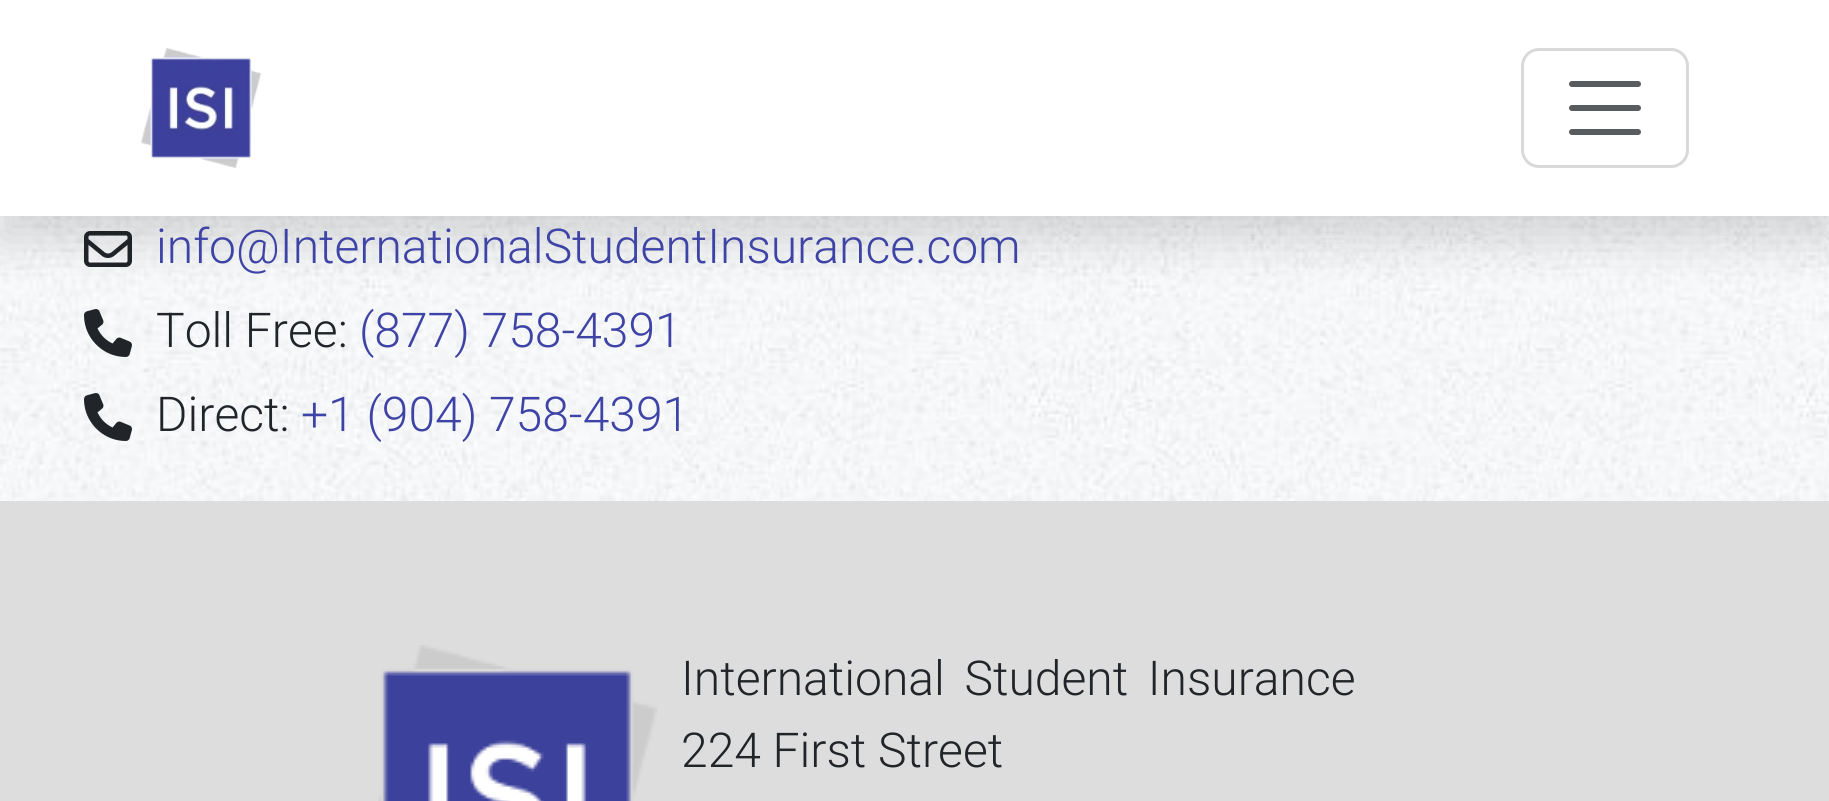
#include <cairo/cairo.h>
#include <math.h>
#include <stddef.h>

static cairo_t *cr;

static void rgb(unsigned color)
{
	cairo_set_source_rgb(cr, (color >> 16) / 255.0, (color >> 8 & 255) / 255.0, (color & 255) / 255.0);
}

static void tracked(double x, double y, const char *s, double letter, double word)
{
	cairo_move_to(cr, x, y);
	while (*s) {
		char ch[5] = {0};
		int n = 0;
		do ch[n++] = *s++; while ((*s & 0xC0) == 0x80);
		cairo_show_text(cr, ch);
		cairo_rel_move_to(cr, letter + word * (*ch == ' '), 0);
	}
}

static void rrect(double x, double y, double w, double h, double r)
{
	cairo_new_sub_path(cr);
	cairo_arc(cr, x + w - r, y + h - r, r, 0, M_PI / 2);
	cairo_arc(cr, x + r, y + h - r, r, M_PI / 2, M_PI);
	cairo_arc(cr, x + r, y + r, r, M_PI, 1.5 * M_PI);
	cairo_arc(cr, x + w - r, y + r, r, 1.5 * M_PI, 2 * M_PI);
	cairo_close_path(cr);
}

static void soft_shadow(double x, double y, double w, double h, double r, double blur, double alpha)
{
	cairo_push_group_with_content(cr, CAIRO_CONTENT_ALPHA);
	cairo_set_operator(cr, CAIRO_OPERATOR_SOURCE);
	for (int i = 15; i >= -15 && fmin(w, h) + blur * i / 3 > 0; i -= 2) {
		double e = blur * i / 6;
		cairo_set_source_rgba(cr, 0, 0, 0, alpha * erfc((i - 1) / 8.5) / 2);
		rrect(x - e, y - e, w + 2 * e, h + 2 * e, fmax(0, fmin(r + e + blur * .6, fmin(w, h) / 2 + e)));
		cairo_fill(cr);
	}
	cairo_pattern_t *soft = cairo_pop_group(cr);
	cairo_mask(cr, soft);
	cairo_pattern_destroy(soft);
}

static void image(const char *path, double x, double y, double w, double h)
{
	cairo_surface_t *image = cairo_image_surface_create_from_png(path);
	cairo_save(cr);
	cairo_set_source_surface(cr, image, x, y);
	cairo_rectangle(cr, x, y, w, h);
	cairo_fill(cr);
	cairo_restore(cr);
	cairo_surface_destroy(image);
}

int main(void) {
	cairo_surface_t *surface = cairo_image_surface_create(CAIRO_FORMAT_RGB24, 1829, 801);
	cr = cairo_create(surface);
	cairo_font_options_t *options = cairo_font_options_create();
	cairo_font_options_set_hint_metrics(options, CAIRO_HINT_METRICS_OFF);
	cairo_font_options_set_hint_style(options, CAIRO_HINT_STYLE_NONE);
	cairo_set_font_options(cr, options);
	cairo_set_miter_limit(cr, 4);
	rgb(0xffffff);
	cairo_paint(cr);
	image("img/1.png", 0, 216, 1829, 285);
	image("img/3.png", 84, 231, 48, 36);
	image("img/4.png", 84, 309, 48, 48);
	rgb(0x000000);
	soft_shadow(0, 24, 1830, 216, 0, 24, 0.15);
	rgb(0xffffff);
	cairo_rectangle(cr, 0, 0, 1829, 216);
	cairo_fill(cr);
	image("img/2.png", 141, 48, 120, 120);
	rrect(1522.5, 49.5, 165, 117, 16.5);
	rgb(0xd9d9d9);
	cairo_set_line_width(cr, 3);
	cairo_stroke(cr);
	cairo_new_path(cr);
	cairo_move_to(cr, 1572, 84);
	cairo_line_to(cr, 1638, 84);
	cairo_move_to(cr, 1572, 108);
	cairo_line_to(cr, 1638, 108);
	cairo_move_to(cr, 1572, 132);
	cairo_line_to(cr, 1638, 132);
	rgb(0x595c5f);
	cairo_set_line_width(cr, 6);
	cairo_set_line_cap(cr, CAIRO_LINE_CAP_ROUND);
	cairo_stroke(cr);
	image("img/5.png", 84, 393, 48, 48);
	rgb(0xdddddd);
	cairo_rectangle(cr, 0, 501, 1829, 300);
	cairo_fill(cr);
	image("img/6.png", 378, 645, 279, 156);
	cairo_select_font_face(cr, "Roboto Light", CAIRO_FONT_SLANT_NORMAL, CAIRO_FONT_WEIGHT_NORMAL);
	cairo_set_font_size(cr, 48);
	rgb(0x3e44a6);
	cairo_move_to(cr, 156, 263);
	cairo_show_text(cr, "info@InternationalStudentInsurance.com");
	rgb(0x212529);
	cairo_move_to(cr, 156, 347);
	cairo_show_text(cr, "Toll Free:");
	rgb(0x3e44a6);
	cairo_move_to(cr, 359, 347);
	cairo_show_text(cr, "(877) 758-4391");
	rgb(0x212529);
	cairo_move_to(cr, 156, 431);
	cairo_show_text(cr, "Direct:");
	rgb(0x3e44a6);
	cairo_move_to(cr, 301, 431);
	cairo_show_text(cr, "+1 (904) 758-4391");
	rgb(0x212529);
	tracked(681, 695, "International Student Insurance", 0, 8);
	cairo_move_to(cr, 681, 767);
	cairo_show_text(cr, "224 First Street");
	cairo_surface_write_to_png(surface, "page.png");
	cairo_font_options_destroy(options);
	cairo_destroy(cr);
	cairo_surface_destroy(surface);
	return 0;
}
